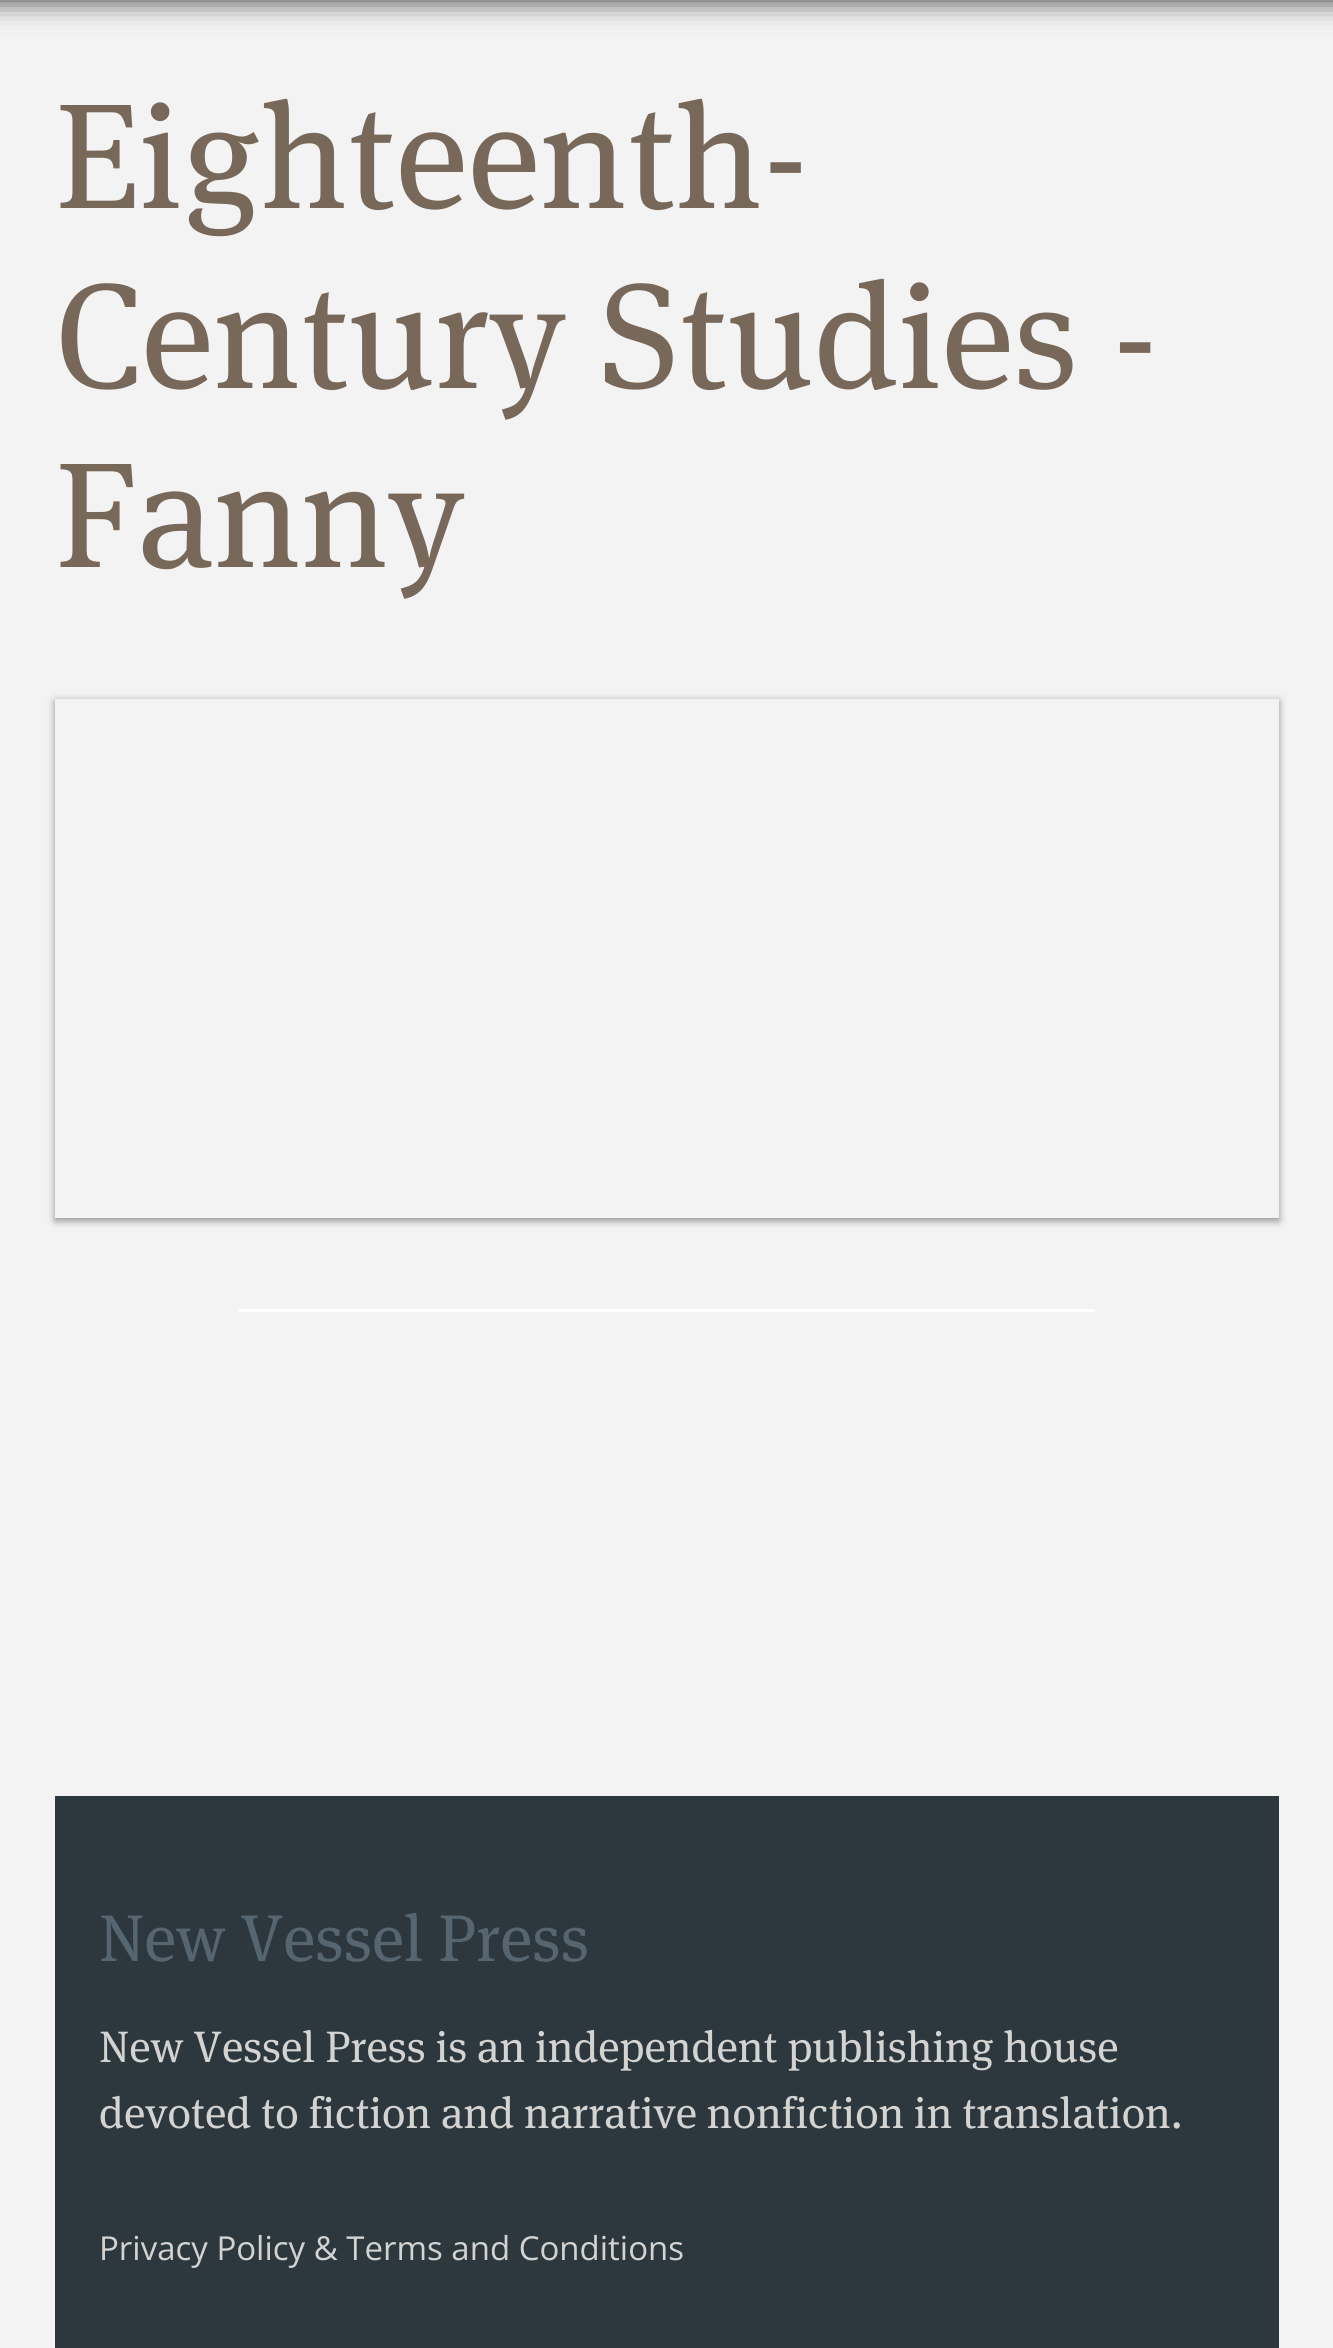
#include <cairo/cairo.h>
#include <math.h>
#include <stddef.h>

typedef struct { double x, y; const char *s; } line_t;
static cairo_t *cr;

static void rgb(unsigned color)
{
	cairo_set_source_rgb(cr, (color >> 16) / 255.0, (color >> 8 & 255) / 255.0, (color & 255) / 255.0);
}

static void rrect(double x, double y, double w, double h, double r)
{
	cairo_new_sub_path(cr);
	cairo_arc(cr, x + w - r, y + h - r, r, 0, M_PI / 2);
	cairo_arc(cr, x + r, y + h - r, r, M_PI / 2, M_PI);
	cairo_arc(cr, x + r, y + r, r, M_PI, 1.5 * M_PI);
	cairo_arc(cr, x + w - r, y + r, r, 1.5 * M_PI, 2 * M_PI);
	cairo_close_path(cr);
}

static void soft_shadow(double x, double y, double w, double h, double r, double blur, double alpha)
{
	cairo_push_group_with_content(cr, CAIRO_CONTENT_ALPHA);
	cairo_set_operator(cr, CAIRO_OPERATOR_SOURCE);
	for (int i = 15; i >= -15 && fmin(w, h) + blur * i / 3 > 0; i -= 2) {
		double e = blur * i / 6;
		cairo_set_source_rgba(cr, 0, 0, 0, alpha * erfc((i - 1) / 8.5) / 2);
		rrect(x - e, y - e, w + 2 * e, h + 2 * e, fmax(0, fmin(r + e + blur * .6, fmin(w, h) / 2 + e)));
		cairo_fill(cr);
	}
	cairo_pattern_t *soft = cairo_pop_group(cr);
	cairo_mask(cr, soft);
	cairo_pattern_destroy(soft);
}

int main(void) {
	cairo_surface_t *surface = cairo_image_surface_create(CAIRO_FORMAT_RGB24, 1333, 2348);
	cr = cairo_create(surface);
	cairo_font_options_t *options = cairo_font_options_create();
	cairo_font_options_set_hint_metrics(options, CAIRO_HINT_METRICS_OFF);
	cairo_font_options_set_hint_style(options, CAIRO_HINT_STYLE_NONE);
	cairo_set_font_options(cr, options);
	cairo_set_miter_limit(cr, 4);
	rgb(0xf3f3f3);
	cairo_paint(cr);
	rgb(0x000000);
	soft_shadow(-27, -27, 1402, 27, 0, 14, 0.8);
	cairo_save(cr);
	cairo_set_fill_rule(cr, CAIRO_FILL_RULE_EVEN_ODD);
	cairo_new_path(cr);
	cairo_move_to(cr, 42, 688);
	cairo_line_to(cr, 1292, 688);
	cairo_line_to(cr, 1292, 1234);
	cairo_line_to(cr, 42, 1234);
	cairo_close_path(cr);
	cairo_move_to(cr, 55, 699);
	cairo_line_to(cr, 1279, 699);
	cairo_line_to(cr, 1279, 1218);
	cairo_line_to(cr, 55, 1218);
	cairo_close_path(cr);
	cairo_clip(cr);
	soft_shadow(55, 701, 1224, 520, 0, 4, 0.4);
	cairo_restore(cr);
	rgb(0xffffff);
	cairo_rectangle(cr, 239, 1309, 856, 3);
	cairo_fill(cr);
	rgb(0x2d383e);
	cairo_rectangle(cr, 55, 1796, 1224, 552);
	cairo_fill(cr);
	cairo_select_font_face(cr, "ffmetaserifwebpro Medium", CAIRO_FONT_SLANT_NORMAL, CAIRO_FONT_WEIGHT_NORMAL);
	cairo_set_font_size(cr, 149.5);
	rgb(0x776859);
	{
		static const line_t items[] = {
			{55, 208, "Eighteenth-"},
			{55, 388, "Century Studies -"},
			{55, 567, "Fanny"},
		};
		for (size_t i = 0; i < sizeof items / sizeof *items; i++) {
			cairo_move_to(cr, items[i].x, items[i].y);
			cairo_show_text(cr, items[i].s);
		}
	}
	cairo_set_font_size(cr, 66);
	rgb(0x556671);
	cairo_move_to(cr, 99, 1961);
	cairo_show_text(cr, "New Vessel Press");
	cairo_set_font_size(cr, 44);
	rgb(0xd3d3d1);
	cairo_move_to(cr, 99, 2062);
	cairo_show_text(cr, "New Vessel Press is an independent publishing house");
	cairo_move_to(cr, 99, 2128);
	cairo_show_text(cr, "devoted to fiction and narrative nonfiction in translation.");
	cairo_select_font_face(cr, "Open Sans", CAIRO_FONT_SLANT_NORMAL, CAIRO_FONT_WEIGHT_NORMAL);
	cairo_set_font_size(cr, 33);
	cairo_move_to(cr, 99, 2260);
	cairo_show_text(cr, "Privacy Policy & Terms and Conditions");
	cairo_surface_write_to_png(surface, "page.png");
	cairo_font_options_destroy(options);
	cairo_destroy(cr);
	cairo_surface_destroy(surface);
	return 0;
}
